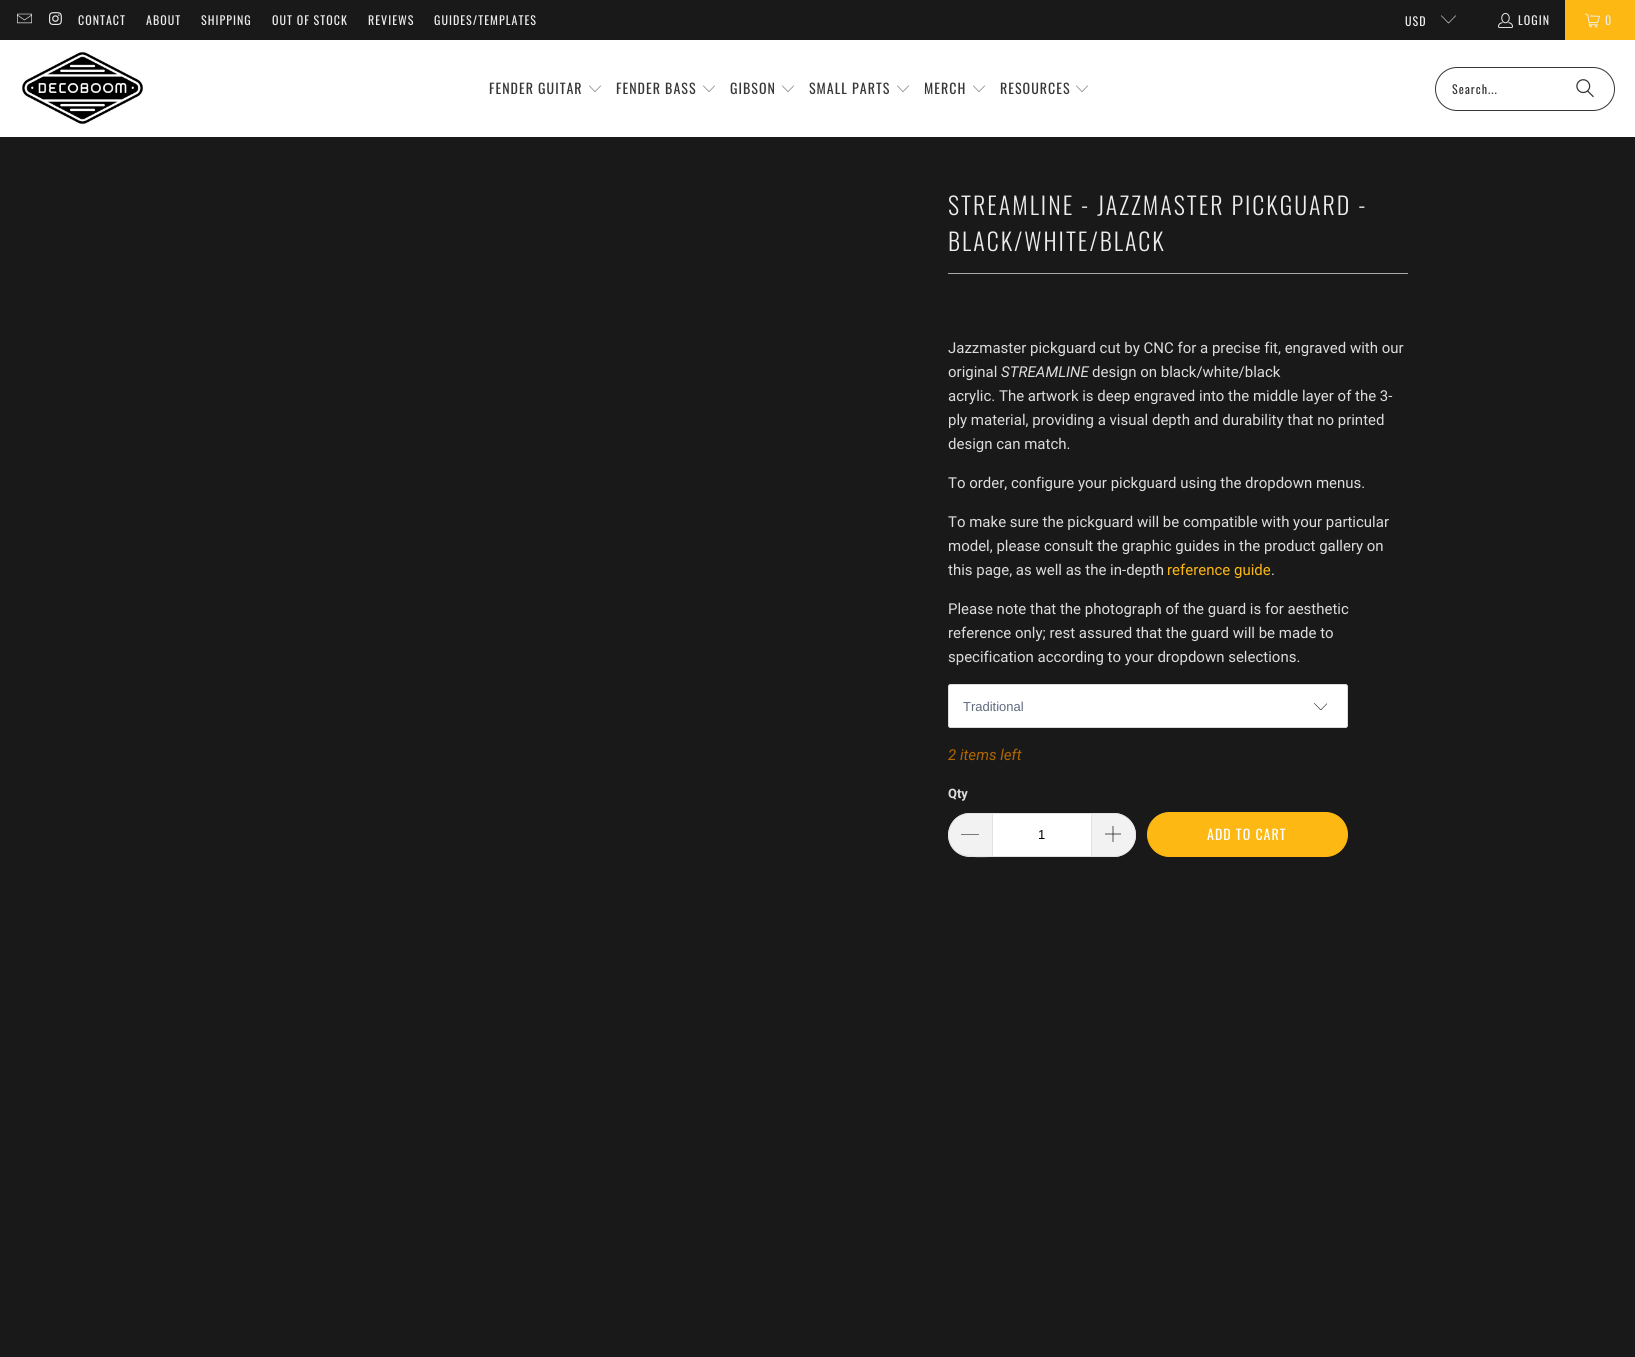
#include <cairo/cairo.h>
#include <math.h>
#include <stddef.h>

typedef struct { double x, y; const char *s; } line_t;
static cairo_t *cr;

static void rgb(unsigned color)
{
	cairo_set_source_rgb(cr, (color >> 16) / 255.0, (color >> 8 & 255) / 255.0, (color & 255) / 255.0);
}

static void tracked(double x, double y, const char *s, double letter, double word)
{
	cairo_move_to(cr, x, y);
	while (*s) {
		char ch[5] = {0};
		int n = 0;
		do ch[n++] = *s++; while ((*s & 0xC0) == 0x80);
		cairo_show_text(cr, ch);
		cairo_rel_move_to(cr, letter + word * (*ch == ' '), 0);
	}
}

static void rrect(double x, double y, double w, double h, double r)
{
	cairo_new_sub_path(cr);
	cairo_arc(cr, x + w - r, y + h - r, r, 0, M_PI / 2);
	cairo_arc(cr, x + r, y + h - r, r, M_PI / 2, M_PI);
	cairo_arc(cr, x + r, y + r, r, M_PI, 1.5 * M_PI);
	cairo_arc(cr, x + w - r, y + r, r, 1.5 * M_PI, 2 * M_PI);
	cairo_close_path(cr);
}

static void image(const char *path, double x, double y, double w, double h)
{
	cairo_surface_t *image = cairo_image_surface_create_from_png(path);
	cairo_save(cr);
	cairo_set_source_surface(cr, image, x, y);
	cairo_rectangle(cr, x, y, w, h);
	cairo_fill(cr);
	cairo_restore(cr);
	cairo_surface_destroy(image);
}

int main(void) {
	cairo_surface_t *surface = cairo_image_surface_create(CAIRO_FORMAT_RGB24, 1635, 1357);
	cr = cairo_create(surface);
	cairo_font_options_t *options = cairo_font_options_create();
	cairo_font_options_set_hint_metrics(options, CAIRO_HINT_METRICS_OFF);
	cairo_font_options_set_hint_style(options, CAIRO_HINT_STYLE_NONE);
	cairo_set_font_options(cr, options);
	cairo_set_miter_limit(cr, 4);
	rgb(0x191919);
	cairo_paint(cr);
	image("img/1.png", 17, 13, 15, 11);
	image("img/2.png", 49, 12, 13, 13);
	image("img/3.png", 1441, 15, 15, 9);
	image("img/4.png", 1498, 12, 15, 16);
	rgb(0xfdb813);
	cairo_rectangle(cr, 1565, 0, 70, 40);
	cairo_fill(cr);
	image("img/5.png", 1585, 13, 15, 15);
	rgb(0xffffff);
	cairo_rectangle(cr, 0, 40, 1635, 97);
	cairo_fill(cr);
	image("img/6.png", 22, 52, 121, 72);
	image("img/7.png", 589, 85, 12, 7);
	image("img/7.png", 703, 85, 12, 7);
	image("img/7.png", 782, 85, 12, 7);
	image("img/7.png", 897, 85, 12, 7);
	image("img/7.png", 973, 85, 12, 7);
	image("img/7.png", 1076, 85, 12, 7);
	rrect(1435.5, 67.5, 179, 43, 21.5);
	rgb(0x363636);
	cairo_set_line_width(cr, 1);
	cairo_stroke(cr);
	image("img/8.png", 1576, 79, 18, 19);
	rgb(0xaaaaaa);
	cairo_rectangle(cr, 948, 273, 460, 1);
	cairo_fill(cr);
	rgb(0xffffff);
	rrect(948, 684, 400, 44, 3);
	cairo_fill(cr);
	image("img/9.png", 1314, 703, 13, 7);
	rrect(948.5, 684.5, 399, 43, 2.5);
	rgb(0xd9dbdc);
	cairo_stroke(cr);
	rgb(0xf2f2f2);
	cairo_new_path(cr);
	cairo_move_to(cr, 970, 813);
	cairo_line_to(cr, 992, 813);
	cairo_line_to(cr, 992, 857);
	cairo_line_to(cr, 970, 857);
	cairo_curve_to(cr, 958, 857, 948, 847, 948, 835);
	cairo_curve_to(cr, 948, 823, 958, 813, 970, 813);
	cairo_close_path(cr);
	cairo_fill(cr);
	rgb(0xe2e2e2);
	cairo_set_fill_rule(cr, CAIRO_FILL_RULE_EVEN_ODD);
	cairo_new_path(cr);
	cairo_move_to(cr, 970, 813);
	cairo_line_to(cr, 992, 813);
	cairo_line_to(cr, 992, 857);
	cairo_curve_to(cr, 984, 857, 969, 858, 961, 855);
	cairo_curve_to(cr, 940, 846, 946, 813, 970, 813);
	cairo_close_path(cr);
	cairo_move_to(cr, 970, 814);
	cairo_line_to(cr, 992, 814);
	cairo_line_to(cr, 992, 856);
	cairo_curve_to(cr, 984, 856, 969, 857, 962, 854);
	cairo_curve_to(cr, 941, 846, 947, 814, 970, 814);
	cairo_close_path(cr);
	cairo_fill(cr);
	rgb(0x000000);
	cairo_set_fill_rule(cr, CAIRO_FILL_RULE_WINDING);
	cairo_new_path(cr);
	cairo_move_to(cr, 961, 834);
	cairo_line_to(cr, 979, 834);
	cairo_line_to(cr, 979, 834.5);
	cairo_line_to(cr, 961, 834.5);
	cairo_close_path(cr);
	cairo_fill(cr);
	rgb(0xffffff);
	cairo_rectangle(cr, 992.5, 813.5, 99, 43);
	cairo_fill_preserve(cr);
	rgb(0xe2e2e2);
	cairo_stroke(cr);
	rgb(0xf2f2f2);
	cairo_new_path(cr);
	cairo_move_to(cr, 1092, 813);
	cairo_line_to(cr, 1114, 813);
	cairo_curve_to(cr, 1126, 813, 1136, 823, 1136, 835);
	cairo_curve_to(cr, 1136, 847, 1126, 857, 1114, 857);
	cairo_line_to(cr, 1092, 857);
	cairo_close_path(cr);
	cairo_fill(cr);
	rgb(0xe2e2e2);
	cairo_set_fill_rule(cr, CAIRO_FILL_RULE_EVEN_ODD);
	cairo_new_path(cr);
	cairo_move_to(cr, 1092, 813);
	cairo_line_to(cr, 1114, 813);
	cairo_curve_to(cr, 1126, 813, 1136, 823, 1136, 835);
	cairo_curve_to(cr, 1136, 847, 1126, 857, 1114, 857);
	cairo_line_to(cr, 1092, 857);
	cairo_close_path(cr);
	cairo_move_to(cr, 1092, 814);
	cairo_line_to(cr, 1114, 814);
	cairo_curve_to(cr, 1126, 814, 1135, 823, 1135, 835);
	cairo_curve_to(cr, 1135, 847, 1126, 856, 1114, 856);
	cairo_line_to(cr, 1092, 856);
	cairo_close_path(cr);
	cairo_fill(cr);
	image("img/10.png", 1105, 826, 16, 16);
	rgb(0xfdb813);
	rrect(1147.5, 812.5, 200, 44, 22);
	cairo_fill_preserve(cr);
	cairo_stroke(cr);
	cairo_select_font_face(cr, "Oswald", CAIRO_FONT_SLANT_NORMAL, CAIRO_FONT_WEIGHT_NORMAL);
	cairo_set_font_size(cr, 12);
	rgb(0xededed);
	{
		static const line_t items[] = {
			{78, 25, "CONTACT"},
			{146, 25, "ABOUT"},
			{201, 25, "SHIPPING"},
			{272, 25, "OUT OF STOCK"},
			{368, 25, "REVIEWS"},
			{434, 25, "GUIDES/TEMPLATES"},
			{1405, 26, "USD"},
			{1518, 25, "LOGIN"},
			{1605, 25, "0"},
		};
		for (size_t i = 0; i < sizeof items / sizeof *items; i++) {
			tracked(items[i].x, items[i].y, items[i].s, 1, 0);
		}
	}
	cairo_set_font_size(cr, 14);
	rgb(0x363636);
	{
		static const line_t items[] = {
			{489, 94, "FENDER GUITAR"},
			{616, 94, "FENDER BASS"},
			{730, 94, "GIBSON"},
			{809, 94, "SMALL PARTS"},
			{924, 94, "MERCH"},
			{1000, 94, "RESOURCES"},
		};
		for (size_t i = 0; i < sizeof items / sizeof *items; i++) {
			tracked(items[i].x, items[i].y, items[i].s, 1, 0);
		}
	}
	cairo_set_font_size(cr, 12);
	tracked(1452, 94, "Search...", 1, 0);
	cairo_select_font_face(cr, "Oswald Light", CAIRO_FONT_SLANT_NORMAL, CAIRO_FONT_WEIGHT_NORMAL);
	cairo_set_font_size(cr, 24);
	rgb(0xededed);
	tracked(948, 215, "STREAMLINE - JAZZMASTER PICKGUARD -", 2, 0);
	tracked(948, 251, "BLACK/WHITE/BLACK", 2, 0);
	cairo_select_font_face(cr, "Roboto", CAIRO_FONT_SLANT_NORMAL, CAIRO_FONT_WEIGHT_NORMAL);
	cairo_set_font_size(cr, 15);
	rgb(0xdedddd);
	cairo_move_to(cr, 948, 353);
	cairo_show_text(cr, "Jazzmaster pickguard cut by CNC for a precise fit, engraved with our");
	cairo_move_to(cr, 948, 377);
	cairo_show_text(cr, "original");
	cairo_select_font_face(cr, "Roboto", CAIRO_FONT_SLANT_ITALIC, CAIRO_FONT_WEIGHT_NORMAL);
	cairo_move_to(cr, 1001, 377);
	cairo_show_text(cr, "STREAMLINE");
	cairo_select_font_face(cr, "Roboto", CAIRO_FONT_SLANT_NORMAL, CAIRO_FONT_WEIGHT_NORMAL);
	{
		static const line_t items[] = {
			{1092, 377, "design on black/white/black"},
			{948, 401, "acrylic. The artwork is deep engraved into the middle layer of the 3-"},
			{948, 425, "ply material, providing a visual depth and durability that no printed"},
			{948, 449, "design can match."},
			{948, 488, "To order, configure your pickguard using the dropdown menus."},
			{948, 527, "To make sure the pickguard will be compatible with your particular"},
			{948, 551, "model, please consult the graphic guides in the product gallery on"},
			{948, 575, "this page, as well as the in-depth"},
		};
		for (size_t i = 0; i < sizeof items / sizeof *items; i++) {
			cairo_move_to(cr, items[i].x, items[i].y);
			cairo_show_text(cr, items[i].s);
		}
	}
	rgb(0xfdb813);
	cairo_move_to(cr, 1167, 575);
	cairo_show_text(cr, "reference guide");
	rgb(0xdedddd);
	{
		static const line_t items[] = {
			{1271, 575, "."},
			{948, 614, "Please note that the photograph of the guard is for aesthetic"},
			{948, 638, "reference only; rest assured that the guard will be made to"},
			{948, 662, "specification according to your dropdown selections."},
		};
		for (size_t i = 0; i < sizeof items / sizeof *items; i++) {
			cairo_move_to(cr, items[i].x, items[i].y);
			cairo_show_text(cr, items[i].s);
		}
	}
	cairo_select_font_face(cr, "Liberation Sans", CAIRO_FONT_SLANT_NORMAL, CAIRO_FONT_WEIGHT_NORMAL);
	cairo_set_font_size(cr, 13);
	rgb(0x5f6a7d);
	cairo_move_to(cr, 963, 711);
	cairo_show_text(cr, "Traditional");
	cairo_select_font_face(cr, "Roboto", CAIRO_FONT_SLANT_ITALIC, CAIRO_FONT_WEIGHT_NORMAL);
	cairo_set_font_size(cr, 15);
	rgb(0xb16700);
	cairo_move_to(cr, 948, 760);
	cairo_show_text(cr, "2 items left");
	cairo_select_font_face(cr, "Roboto", CAIRO_FONT_SLANT_NORMAL, CAIRO_FONT_WEIGHT_BOLD);
	cairo_set_font_size(cr, 13);
	rgb(0xdedddd);
	cairo_move_to(cr, 948, 798);
	cairo_show_text(cr, "Qty");
	cairo_select_font_face(cr, "Liberation Sans", CAIRO_FONT_SLANT_NORMAL, CAIRO_FONT_WEIGHT_NORMAL);
	rgb(0x000000);
	cairo_move_to(cr, 1038, 839);
	cairo_show_text(cr, "1");
	cairo_select_font_face(cr, "Oswald", CAIRO_FONT_SLANT_NORMAL, CAIRO_FONT_WEIGHT_NORMAL);
	cairo_set_font_size(cr, 14);
	rgb(0xffffff);
	tracked(1207, 840, "ADD TO CART", 1, 0);
	cairo_surface_write_to_png(surface, "page.png");
	cairo_font_options_destroy(options);
	cairo_destroy(cr);
	cairo_surface_destroy(surface);
	return 0;
}
